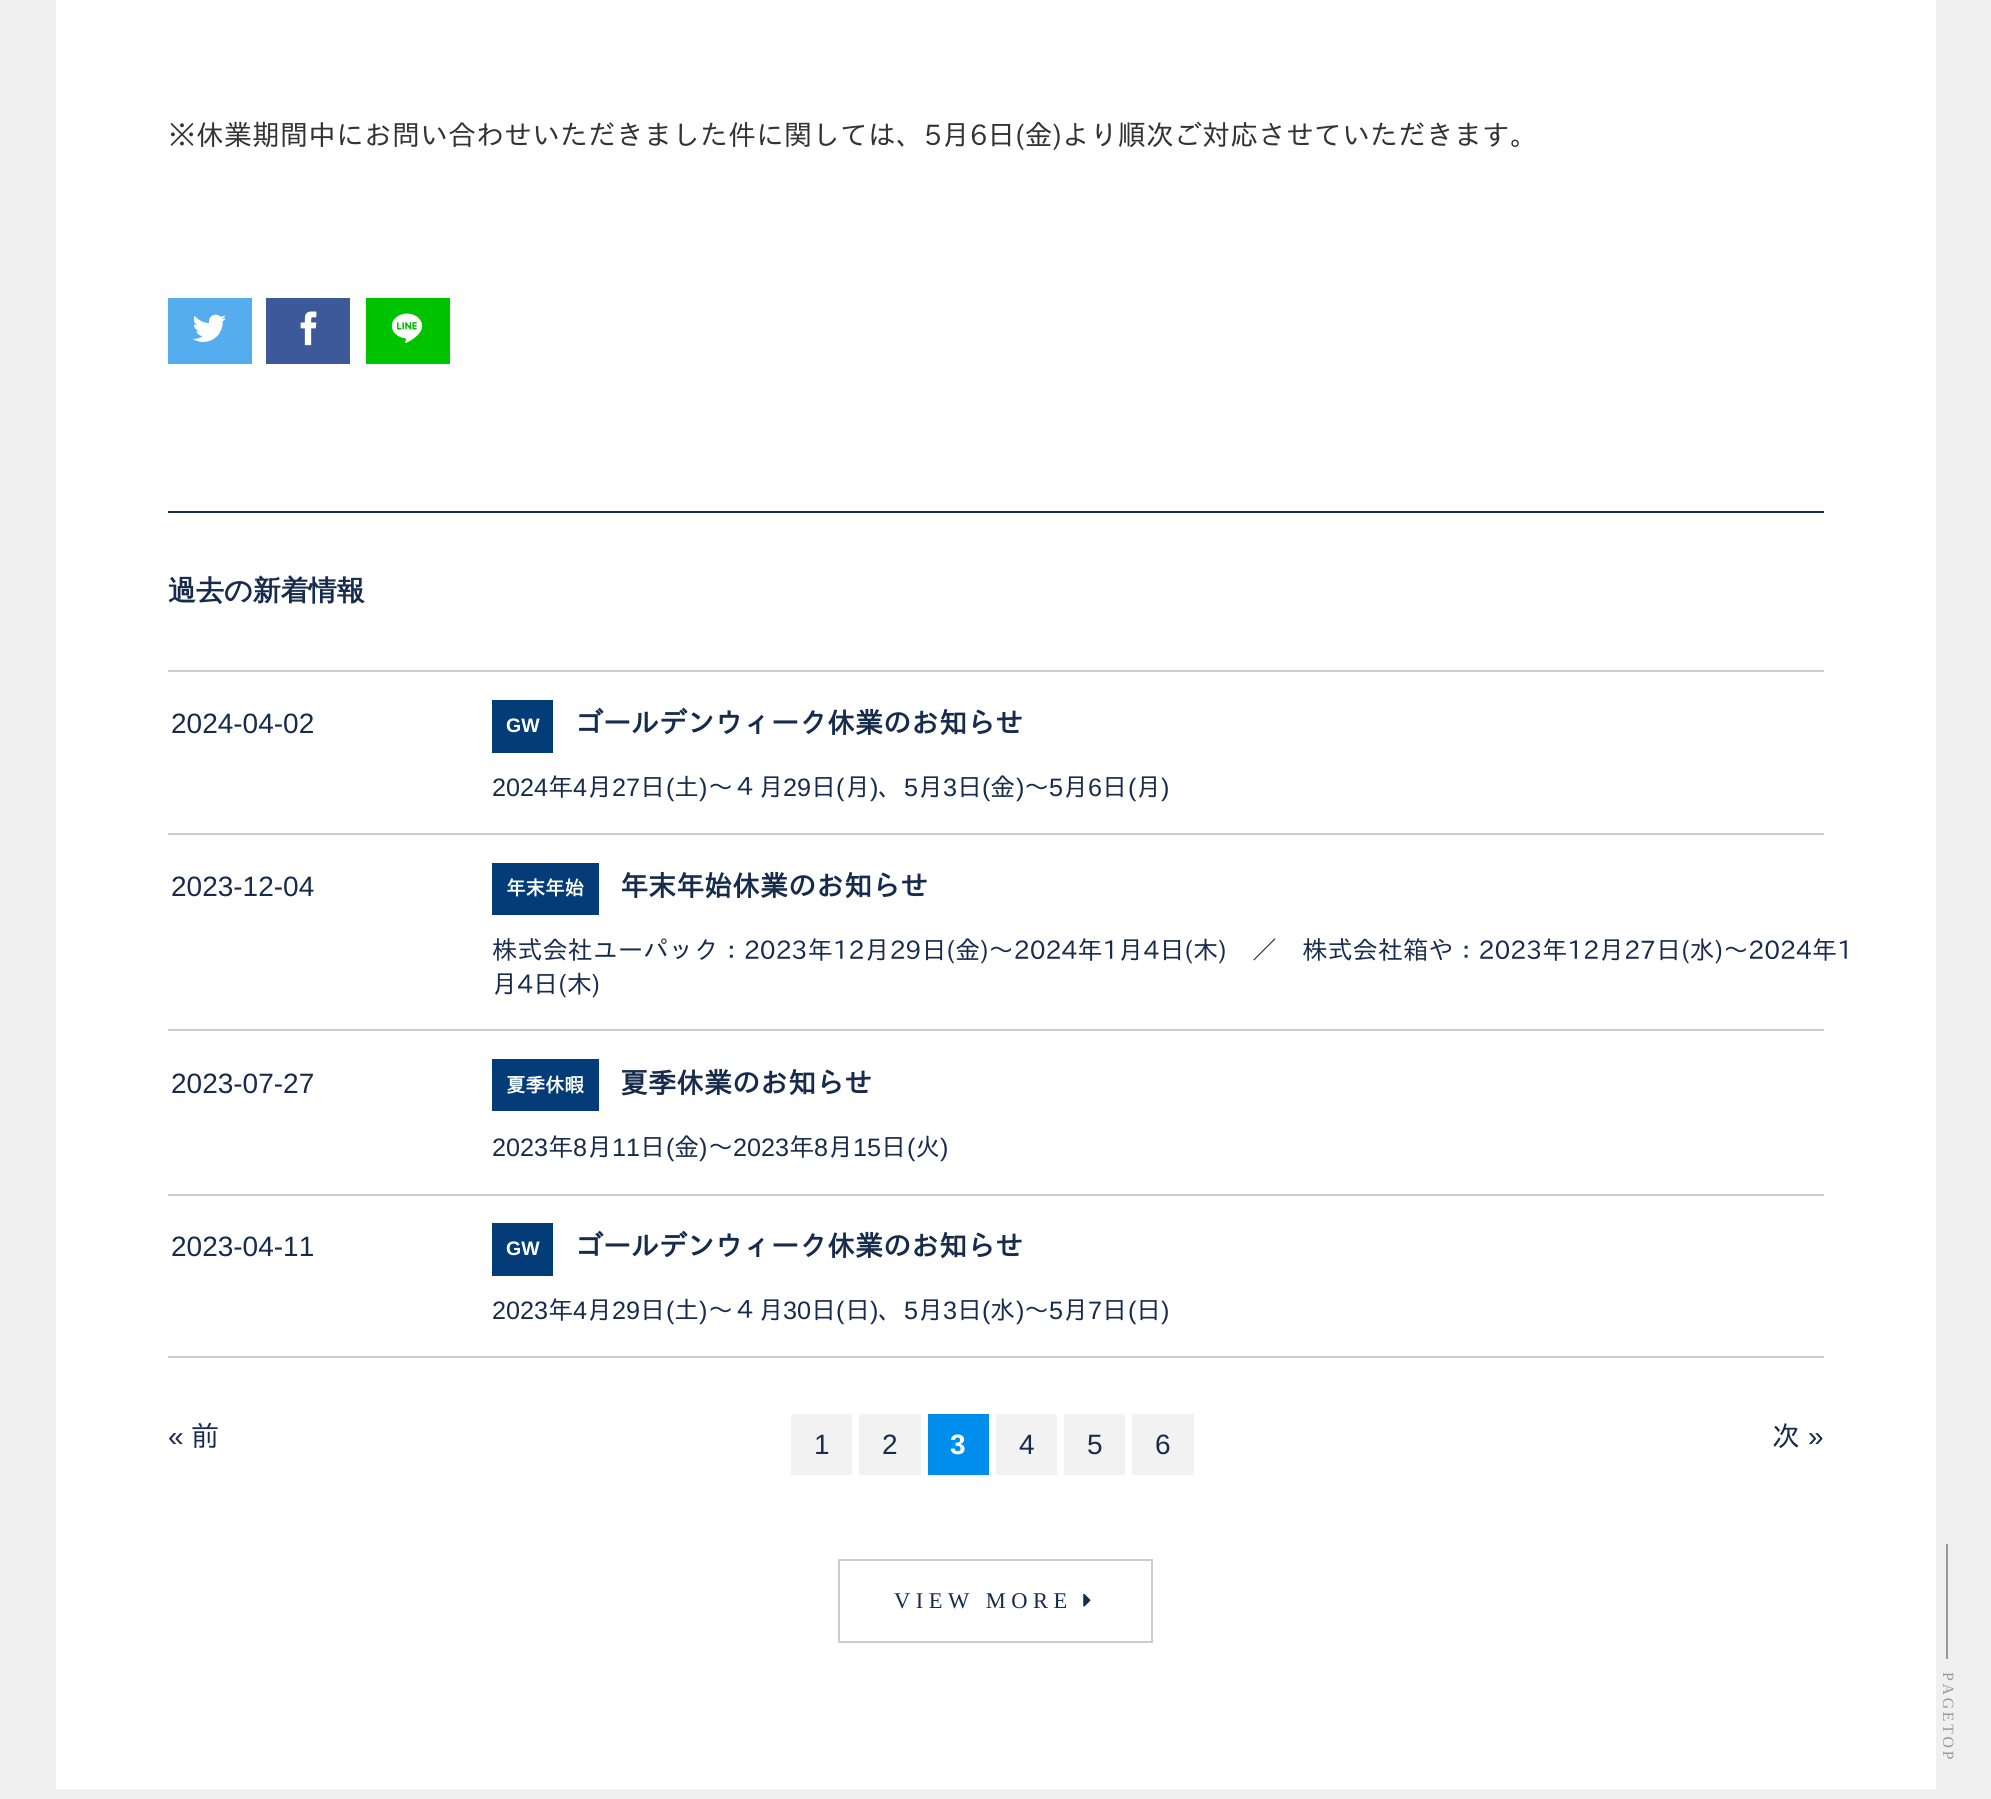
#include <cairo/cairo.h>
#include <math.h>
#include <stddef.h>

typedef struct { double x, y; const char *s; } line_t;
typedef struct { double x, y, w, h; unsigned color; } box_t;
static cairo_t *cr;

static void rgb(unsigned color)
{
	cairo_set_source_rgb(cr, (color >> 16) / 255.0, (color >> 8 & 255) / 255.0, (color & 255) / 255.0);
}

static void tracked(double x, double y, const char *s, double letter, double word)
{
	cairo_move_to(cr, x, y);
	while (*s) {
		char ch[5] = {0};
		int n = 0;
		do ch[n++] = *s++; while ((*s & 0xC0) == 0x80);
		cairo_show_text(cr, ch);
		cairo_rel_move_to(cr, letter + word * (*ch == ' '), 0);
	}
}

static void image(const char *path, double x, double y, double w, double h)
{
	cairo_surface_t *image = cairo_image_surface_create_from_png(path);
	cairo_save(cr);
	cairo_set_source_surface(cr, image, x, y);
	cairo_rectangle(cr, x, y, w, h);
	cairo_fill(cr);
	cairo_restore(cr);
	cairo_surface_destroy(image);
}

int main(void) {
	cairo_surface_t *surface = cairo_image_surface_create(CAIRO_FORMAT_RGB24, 1991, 1799);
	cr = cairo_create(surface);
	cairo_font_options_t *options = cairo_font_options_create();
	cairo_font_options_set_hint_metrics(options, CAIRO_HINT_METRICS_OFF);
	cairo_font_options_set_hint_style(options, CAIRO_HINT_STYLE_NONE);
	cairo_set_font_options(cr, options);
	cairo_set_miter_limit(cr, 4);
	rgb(0xf0f0f0);
	cairo_paint(cr);
	rgb(0xffffff);
	cairo_rectangle(cr, 56, 0, 1880, 1789);
	cairo_fill(cr);
	rgb(0x55acee);
	cairo_rectangle(cr, 168, 298, 84, 66);
	cairo_fill(cr);
	image("img/1.png", 192, 314, 34, 28);
	rgb(0x3c5a99);
	cairo_rectangle(cr, 266, 298, 84, 66);
	cairo_fill(cr);
	image("img/2.png", 300, 311, 17, 35);
	rgb(0x00c300);
	cairo_rectangle(cr, 366, 298, 84, 66);
	cairo_fill(cr);
	image("img/3.png", 391, 313, 32, 30);
	{
		static const box_t items[] = {
			{168, 511, 1656, 2, 0x172c4d},
			{168, 670, 1656, 2, 0xcccccc},
			{168, 833, 1656, 2, 0xcccccc},
			{492, 700, 61, 53, 0x043c78},
			{168, 1029, 1656, 2, 0xcccccc},
			{492, 863, 107, 52, 0x043c78},
			{168, 1194, 1656, 2, 0xcccccc},
			{492, 1059, 107, 52, 0x043c78},
			{168, 1356, 1656, 2, 0xcccccc},
			{492, 1223, 61, 53, 0x043c78},
			{791, 1414, 61, 61, 0xf2f2f2},
			{859, 1414, 62, 61, 0xf2f2f2},
			{928, 1414, 61, 61, 0x008eec},
			{996, 1414, 61, 61, 0xf2f2f2},
			{1064, 1414, 61, 61, 0xf2f2f2},
			{1132, 1414, 62, 61, 0xf2f2f2},
		};
		for (size_t i = 0; i < sizeof items / sizeof *items; i++) {
			rgb(items[i].color);
			cairo_rectangle(cr, items[i].x, items[i].y, items[i].w, items[i].h);
			cairo_fill(cr);
		}
	}
	cairo_rectangle(cr, 839, 1560, 313, 82);
	rgb(0xcccccc);
	cairo_stroke(cr);
	image("img/4.png", 1083, 1593, 8, 14);
	rgb(0x999999);
	cairo_rectangle(cr, 1946, 1544, 2, 115);
	cairo_fill(cr);
	cairo_select_font_face(cr, "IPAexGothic", CAIRO_FONT_SLANT_NORMAL, CAIRO_FONT_WEIGHT_NORMAL);
	cairo_set_font_size(cr, 28);
	rgb(0x333333);
	cairo_move_to(cr, 168, 145);
	cairo_show_text(cr, "※休業期間中にお問い合わせいただきました件に関しては、5月6日(金)より順次ご対応させていただきます。");
	cairo_select_font_face(cr, "WenQuanYi Zen Hei", CAIRO_FONT_SLANT_NORMAL, CAIRO_FONT_WEIGHT_BOLD);
	rgb(0x172c4d);
	cairo_move_to(cr, 168, 600);
	cairo_show_text(cr, "過去の新着情報");
	cairo_select_font_face(cr, "Liberation Sans", CAIRO_FONT_SLANT_NORMAL, CAIRO_FONT_WEIGHT_NORMAL);
	cairo_move_to(cr, 171, 733);
	cairo_show_text(cr, "2024-04-02");
	cairo_select_font_face(cr, "Liberation Sans", CAIRO_FONT_SLANT_NORMAL, CAIRO_FONT_WEIGHT_BOLD);
	cairo_set_font_size(cr, 19.5);
	rgb(0xffffff);
	cairo_move_to(cr, 506, 732);
	cairo_show_text(cr, "GW");
	cairo_select_font_face(cr, "IPAexGothic", CAIRO_FONT_SLANT_NORMAL, CAIRO_FONT_WEIGHT_BOLD);
	cairo_set_font_size(cr, 28);
	rgb(0x172c4d);
	cairo_move_to(cr, 575, 733);
	cairo_show_text(cr, "ゴールデンウィーク休業のお知らせ");
	cairo_select_font_face(cr, "Liberation Sans", CAIRO_FONT_SLANT_NORMAL, CAIRO_FONT_WEIGHT_NORMAL);
	cairo_set_font_size(cr, 25.2);
	cairo_move_to(cr, 492, 796);
	cairo_show_text(cr, "2024");
	cairo_select_font_face(cr, "IPAexGothic", CAIRO_FONT_SLANT_NORMAL, CAIRO_FONT_WEIGHT_NORMAL);
	cairo_move_to(cr, 548, 796);
	cairo_show_text(cr, "年");
	cairo_select_font_face(cr, "Liberation Sans", CAIRO_FONT_SLANT_NORMAL, CAIRO_FONT_WEIGHT_NORMAL);
	cairo_move_to(cr, 573, 796);
	cairo_show_text(cr, "4");
	cairo_select_font_face(cr, "IPAexGothic", CAIRO_FONT_SLANT_NORMAL, CAIRO_FONT_WEIGHT_NORMAL);
	cairo_move_to(cr, 587, 796);
	cairo_show_text(cr, "月");
	cairo_select_font_face(cr, "Liberation Sans", CAIRO_FONT_SLANT_NORMAL, CAIRO_FONT_WEIGHT_NORMAL);
	cairo_move_to(cr, 612, 796);
	cairo_show_text(cr, "27");
	cairo_select_font_face(cr, "IPAexGothic", CAIRO_FONT_SLANT_NORMAL, CAIRO_FONT_WEIGHT_NORMAL);
	cairo_move_to(cr, 640, 796);
	cairo_show_text(cr, "日");
	cairo_select_font_face(cr, "Liberation Sans", CAIRO_FONT_SLANT_NORMAL, CAIRO_FONT_WEIGHT_NORMAL);
	cairo_move_to(cr, 666, 796);
	cairo_show_text(cr, "(");
	cairo_select_font_face(cr, "IPAexGothic", CAIRO_FONT_SLANT_NORMAL, CAIRO_FONT_WEIGHT_NORMAL);
	cairo_move_to(cr, 674, 796);
	cairo_show_text(cr, "土");
	cairo_select_font_face(cr, "Liberation Sans", CAIRO_FONT_SLANT_NORMAL, CAIRO_FONT_WEIGHT_NORMAL);
	cairo_move_to(cr, 699, 796);
	cairo_show_text(cr, ")");
	cairo_select_font_face(cr, "IPAexGothic", CAIRO_FONT_SLANT_NORMAL, CAIRO_FONT_WEIGHT_NORMAL);
	cairo_move_to(cr, 708, 796);
	cairo_show_text(cr, "～４月");
	cairo_select_font_face(cr, "Liberation Sans", CAIRO_FONT_SLANT_NORMAL, CAIRO_FONT_WEIGHT_NORMAL);
	cairo_move_to(cr, 783, 796);
	cairo_show_text(cr, "29");
	cairo_select_font_face(cr, "IPAexGothic", CAIRO_FONT_SLANT_NORMAL, CAIRO_FONT_WEIGHT_NORMAL);
	cairo_move_to(cr, 811, 796);
	cairo_show_text(cr, "日");
	cairo_select_font_face(cr, "Liberation Sans", CAIRO_FONT_SLANT_NORMAL, CAIRO_FONT_WEIGHT_NORMAL);
	cairo_move_to(cr, 836, 796);
	cairo_show_text(cr, "(");
	cairo_select_font_face(cr, "IPAexGothic", CAIRO_FONT_SLANT_NORMAL, CAIRO_FONT_WEIGHT_NORMAL);
	cairo_move_to(cr, 845, 796);
	cairo_show_text(cr, "月");
	cairo_select_font_face(cr, "Liberation Sans", CAIRO_FONT_SLANT_NORMAL, CAIRO_FONT_WEIGHT_NORMAL);
	cairo_move_to(cr, 870, 796);
	cairo_show_text(cr, ")");
	cairo_move_to(cr, 904, 796);
	cairo_show_text(cr, "5");
	cairo_select_font_face(cr, "IPAexGothic", CAIRO_FONT_SLANT_NORMAL, CAIRO_FONT_WEIGHT_NORMAL);
	cairo_move_to(cr, 918, 796);
	cairo_show_text(cr, "月");
	cairo_select_font_face(cr, "Liberation Sans", CAIRO_FONT_SLANT_NORMAL, CAIRO_FONT_WEIGHT_NORMAL);
	cairo_move_to(cr, 943, 796);
	cairo_show_text(cr, "3");
	cairo_select_font_face(cr, "IPAexGothic", CAIRO_FONT_SLANT_NORMAL, CAIRO_FONT_WEIGHT_NORMAL);
	cairo_move_to(cr, 957, 796);
	cairo_show_text(cr, "日");
	cairo_select_font_face(cr, "Liberation Sans", CAIRO_FONT_SLANT_NORMAL, CAIRO_FONT_WEIGHT_NORMAL);
	cairo_move_to(cr, 982, 796);
	cairo_show_text(cr, "(");
	cairo_select_font_face(cr, "IPAexGothic", CAIRO_FONT_SLANT_NORMAL, CAIRO_FONT_WEIGHT_NORMAL);
	cairo_move_to(cr, 990, 796);
	cairo_show_text(cr, "金");
	cairo_select_font_face(cr, "Liberation Sans", CAIRO_FONT_SLANT_NORMAL, CAIRO_FONT_WEIGHT_NORMAL);
	cairo_move_to(cr, 1016, 796);
	cairo_show_text(cr, ")");
	cairo_select_font_face(cr, "IPAexGothic", CAIRO_FONT_SLANT_NORMAL, CAIRO_FONT_WEIGHT_NORMAL);
	cairo_move_to(cr, 1024, 796);
	cairo_show_text(cr, "～");
	cairo_select_font_face(cr, "Liberation Sans", CAIRO_FONT_SLANT_NORMAL, CAIRO_FONT_WEIGHT_NORMAL);
	cairo_move_to(cr, 1049, 796);
	cairo_show_text(cr, "5");
	cairo_select_font_face(cr, "IPAexGothic", CAIRO_FONT_SLANT_NORMAL, CAIRO_FONT_WEIGHT_NORMAL);
	cairo_move_to(cr, 1063, 796);
	cairo_show_text(cr, "月");
	cairo_select_font_face(cr, "Liberation Sans", CAIRO_FONT_SLANT_NORMAL, CAIRO_FONT_WEIGHT_NORMAL);
	cairo_move_to(cr, 1088, 796);
	cairo_show_text(cr, "6");
	cairo_select_font_face(cr, "IPAexGothic", CAIRO_FONT_SLANT_NORMAL, CAIRO_FONT_WEIGHT_NORMAL);
	cairo_move_to(cr, 1102, 796);
	cairo_show_text(cr, "日");
	cairo_select_font_face(cr, "Liberation Sans", CAIRO_FONT_SLANT_NORMAL, CAIRO_FONT_WEIGHT_NORMAL);
	cairo_move_to(cr, 1128, 796);
	cairo_show_text(cr, "(");
	cairo_select_font_face(cr, "IPAexGothic", CAIRO_FONT_SLANT_NORMAL, CAIRO_FONT_WEIGHT_NORMAL);
	cairo_move_to(cr, 1136, 796);
	cairo_show_text(cr, "月");
	cairo_select_font_face(cr, "Liberation Sans", CAIRO_FONT_SLANT_NORMAL, CAIRO_FONT_WEIGHT_NORMAL);
	cairo_move_to(cr, 1161, 796);
	cairo_show_text(cr, ")");
	cairo_select_font_face(cr, "IPAexGothic", CAIRO_FONT_SLANT_NORMAL, CAIRO_FONT_WEIGHT_NORMAL);
	cairo_move_to(cr, 878, 796);
	cairo_show_text(cr, "、");
	cairo_select_font_face(cr, "Liberation Sans", CAIRO_FONT_SLANT_NORMAL, CAIRO_FONT_WEIGHT_NORMAL);
	cairo_set_font_size(cr, 28);
	cairo_move_to(cr, 171, 896);
	cairo_show_text(cr, "2023-12-04");
	cairo_select_font_face(cr, "IPAexGothic", CAIRO_FONT_SLANT_NORMAL, CAIRO_FONT_WEIGHT_BOLD);
	cairo_set_font_size(cr, 19.5);
	rgb(0xffffff);
	cairo_move_to(cr, 506, 895);
	cairo_show_text(cr, "年末年始");
	cairo_set_font_size(cr, 28);
	rgb(0x172c4d);
	cairo_move_to(cr, 620, 896);
	cairo_show_text(cr, "年末年始休業のお知らせ");
	cairo_select_font_face(cr, "IPAexGothic", CAIRO_FONT_SLANT_NORMAL, CAIRO_FONT_WEIGHT_NORMAL);
	cairo_set_font_size(cr, 25.2);
	cairo_move_to(cr, 492, 959);
	cairo_show_text(cr, "株式会社ユーパック：2023年12月29日(金)～2024年1月4日(木)　／　株式会社箱や：2023年12月27日(水)～2024年1");
	cairo_move_to(cr, 492, 993);
	cairo_show_text(cr, "月4日(木)");
	cairo_select_font_face(cr, "Liberation Sans", CAIRO_FONT_SLANT_NORMAL, CAIRO_FONT_WEIGHT_NORMAL);
	cairo_set_font_size(cr, 28);
	cairo_move_to(cr, 171, 1093);
	cairo_show_text(cr, "2023-07-27");
	cairo_select_font_face(cr, "IPAexGothic", CAIRO_FONT_SLANT_NORMAL, CAIRO_FONT_WEIGHT_BOLD);
	cairo_set_font_size(cr, 19.5);
	rgb(0xffffff);
	cairo_move_to(cr, 506, 1092);
	cairo_show_text(cr, "夏季休暇");
	cairo_set_font_size(cr, 28);
	rgb(0x172c4d);
	cairo_move_to(cr, 620, 1093);
	cairo_show_text(cr, "夏季休業のお知らせ");
	cairo_select_font_face(cr, "Liberation Sans", CAIRO_FONT_SLANT_NORMAL, CAIRO_FONT_WEIGHT_NORMAL);
	cairo_set_font_size(cr, 25.2);
	cairo_move_to(cr, 492, 1156);
	cairo_show_text(cr, "2023");
	cairo_select_font_face(cr, "IPAexGothic", CAIRO_FONT_SLANT_NORMAL, CAIRO_FONT_WEIGHT_NORMAL);
	cairo_move_to(cr, 548, 1156);
	cairo_show_text(cr, "年");
	cairo_select_font_face(cr, "Liberation Sans", CAIRO_FONT_SLANT_NORMAL, CAIRO_FONT_WEIGHT_NORMAL);
	cairo_move_to(cr, 573, 1156);
	cairo_show_text(cr, "8");
	cairo_select_font_face(cr, "IPAexGothic", CAIRO_FONT_SLANT_NORMAL, CAIRO_FONT_WEIGHT_NORMAL);
	cairo_move_to(cr, 587, 1156);
	cairo_show_text(cr, "月");
	cairo_select_font_face(cr, "Liberation Sans", CAIRO_FONT_SLANT_NORMAL, CAIRO_FONT_WEIGHT_NORMAL);
	cairo_move_to(cr, 612, 1156);
	cairo_show_text(cr, "11");
	cairo_select_font_face(cr, "IPAexGothic", CAIRO_FONT_SLANT_NORMAL, CAIRO_FONT_WEIGHT_NORMAL);
	cairo_move_to(cr, 640, 1156);
	cairo_show_text(cr, "日");
	cairo_select_font_face(cr, "Liberation Sans", CAIRO_FONT_SLANT_NORMAL, CAIRO_FONT_WEIGHT_NORMAL);
	cairo_move_to(cr, 666, 1156);
	cairo_show_text(cr, "(");
	cairo_select_font_face(cr, "IPAexGothic", CAIRO_FONT_SLANT_NORMAL, CAIRO_FONT_WEIGHT_NORMAL);
	cairo_move_to(cr, 674, 1156);
	cairo_show_text(cr, "金");
	cairo_select_font_face(cr, "Liberation Sans", CAIRO_FONT_SLANT_NORMAL, CAIRO_FONT_WEIGHT_NORMAL);
	cairo_move_to(cr, 699, 1156);
	cairo_show_text(cr, ")");
	cairo_select_font_face(cr, "IPAexGothic", CAIRO_FONT_SLANT_NORMAL, CAIRO_FONT_WEIGHT_NORMAL);
	cairo_move_to(cr, 708, 1156);
	cairo_show_text(cr, "～");
	cairo_select_font_face(cr, "Liberation Sans", CAIRO_FONT_SLANT_NORMAL, CAIRO_FONT_WEIGHT_NORMAL);
	cairo_move_to(cr, 733, 1156);
	cairo_show_text(cr, "2023");
	cairo_select_font_face(cr, "IPAexGothic", CAIRO_FONT_SLANT_NORMAL, CAIRO_FONT_WEIGHT_NORMAL);
	cairo_move_to(cr, 789, 1156);
	cairo_show_text(cr, "年");
	cairo_select_font_face(cr, "Liberation Sans", CAIRO_FONT_SLANT_NORMAL, CAIRO_FONT_WEIGHT_NORMAL);
	cairo_move_to(cr, 814, 1156);
	cairo_show_text(cr, "8");
	cairo_select_font_face(cr, "IPAexGothic", CAIRO_FONT_SLANT_NORMAL, CAIRO_FONT_WEIGHT_NORMAL);
	cairo_move_to(cr, 828, 1156);
	cairo_show_text(cr, "月");
	cairo_select_font_face(cr, "Liberation Sans", CAIRO_FONT_SLANT_NORMAL, CAIRO_FONT_WEIGHT_NORMAL);
	cairo_move_to(cr, 853, 1156);
	cairo_show_text(cr, "15");
	cairo_select_font_face(cr, "IPAexGothic", CAIRO_FONT_SLANT_NORMAL, CAIRO_FONT_WEIGHT_NORMAL);
	cairo_move_to(cr, 881, 1156);
	cairo_show_text(cr, "日");
	cairo_select_font_face(cr, "Liberation Sans", CAIRO_FONT_SLANT_NORMAL, CAIRO_FONT_WEIGHT_NORMAL);
	cairo_move_to(cr, 907, 1156);
	cairo_show_text(cr, "(");
	cairo_select_font_face(cr, "IPAexGothic", CAIRO_FONT_SLANT_NORMAL, CAIRO_FONT_WEIGHT_NORMAL);
	cairo_move_to(cr, 915, 1156);
	cairo_show_text(cr, "火");
	cairo_select_font_face(cr, "Liberation Sans", CAIRO_FONT_SLANT_NORMAL, CAIRO_FONT_WEIGHT_NORMAL);
	cairo_move_to(cr, 940, 1156);
	cairo_show_text(cr, ")");
	cairo_set_font_size(cr, 28);
	cairo_move_to(cr, 171, 1256);
	cairo_show_text(cr, "2023-04-11");
	cairo_select_font_face(cr, "Liberation Sans", CAIRO_FONT_SLANT_NORMAL, CAIRO_FONT_WEIGHT_BOLD);
	cairo_set_font_size(cr, 19.5);
	rgb(0xffffff);
	cairo_move_to(cr, 506, 1255);
	cairo_show_text(cr, "GW");
	cairo_select_font_face(cr, "IPAexGothic", CAIRO_FONT_SLANT_NORMAL, CAIRO_FONT_WEIGHT_BOLD);
	cairo_set_font_size(cr, 28);
	rgb(0x172c4d);
	cairo_move_to(cr, 575, 1256);
	cairo_show_text(cr, "ゴールデンウィーク休業のお知らせ");
	cairo_select_font_face(cr, "Liberation Sans", CAIRO_FONT_SLANT_NORMAL, CAIRO_FONT_WEIGHT_NORMAL);
	cairo_set_font_size(cr, 25.2);
	cairo_move_to(cr, 492, 1319);
	cairo_show_text(cr, "2023");
	cairo_select_font_face(cr, "IPAexGothic", CAIRO_FONT_SLANT_NORMAL, CAIRO_FONT_WEIGHT_NORMAL);
	cairo_move_to(cr, 548, 1319);
	cairo_show_text(cr, "年");
	cairo_select_font_face(cr, "Liberation Sans", CAIRO_FONT_SLANT_NORMAL, CAIRO_FONT_WEIGHT_NORMAL);
	cairo_move_to(cr, 573, 1319);
	cairo_show_text(cr, "4");
	cairo_select_font_face(cr, "IPAexGothic", CAIRO_FONT_SLANT_NORMAL, CAIRO_FONT_WEIGHT_NORMAL);
	cairo_move_to(cr, 587, 1319);
	cairo_show_text(cr, "月");
	cairo_select_font_face(cr, "Liberation Sans", CAIRO_FONT_SLANT_NORMAL, CAIRO_FONT_WEIGHT_NORMAL);
	cairo_move_to(cr, 612, 1319);
	cairo_show_text(cr, "29");
	cairo_select_font_face(cr, "IPAexGothic", CAIRO_FONT_SLANT_NORMAL, CAIRO_FONT_WEIGHT_NORMAL);
	cairo_move_to(cr, 640, 1319);
	cairo_show_text(cr, "日");
	cairo_select_font_face(cr, "Liberation Sans", CAIRO_FONT_SLANT_NORMAL, CAIRO_FONT_WEIGHT_NORMAL);
	cairo_move_to(cr, 666, 1319);
	cairo_show_text(cr, "(");
	cairo_select_font_face(cr, "IPAexGothic", CAIRO_FONT_SLANT_NORMAL, CAIRO_FONT_WEIGHT_NORMAL);
	cairo_move_to(cr, 674, 1319);
	cairo_show_text(cr, "土");
	cairo_select_font_face(cr, "Liberation Sans", CAIRO_FONT_SLANT_NORMAL, CAIRO_FONT_WEIGHT_NORMAL);
	cairo_move_to(cr, 699, 1319);
	cairo_show_text(cr, ")");
	cairo_select_font_face(cr, "IPAexGothic", CAIRO_FONT_SLANT_NORMAL, CAIRO_FONT_WEIGHT_NORMAL);
	cairo_move_to(cr, 708, 1319);
	cairo_show_text(cr, "～４月");
	cairo_select_font_face(cr, "Liberation Sans", CAIRO_FONT_SLANT_NORMAL, CAIRO_FONT_WEIGHT_NORMAL);
	cairo_move_to(cr, 783, 1319);
	cairo_show_text(cr, "30");
	cairo_select_font_face(cr, "IPAexGothic", CAIRO_FONT_SLANT_NORMAL, CAIRO_FONT_WEIGHT_NORMAL);
	cairo_move_to(cr, 811, 1319);
	cairo_show_text(cr, "日");
	cairo_select_font_face(cr, "Liberation Sans", CAIRO_FONT_SLANT_NORMAL, CAIRO_FONT_WEIGHT_NORMAL);
	cairo_move_to(cr, 836, 1319);
	cairo_show_text(cr, "(");
	cairo_select_font_face(cr, "IPAexGothic", CAIRO_FONT_SLANT_NORMAL, CAIRO_FONT_WEIGHT_NORMAL);
	cairo_move_to(cr, 845, 1319);
	cairo_show_text(cr, "日");
	cairo_select_font_face(cr, "Liberation Sans", CAIRO_FONT_SLANT_NORMAL, CAIRO_FONT_WEIGHT_NORMAL);
	cairo_move_to(cr, 870, 1319);
	cairo_show_text(cr, ")");
	cairo_move_to(cr, 904, 1319);
	cairo_show_text(cr, "5");
	cairo_select_font_face(cr, "IPAexGothic", CAIRO_FONT_SLANT_NORMAL, CAIRO_FONT_WEIGHT_NORMAL);
	cairo_move_to(cr, 918, 1319);
	cairo_show_text(cr, "月");
	cairo_select_font_face(cr, "Liberation Sans", CAIRO_FONT_SLANT_NORMAL, CAIRO_FONT_WEIGHT_NORMAL);
	cairo_move_to(cr, 943, 1319);
	cairo_show_text(cr, "3");
	cairo_select_font_face(cr, "IPAexGothic", CAIRO_FONT_SLANT_NORMAL, CAIRO_FONT_WEIGHT_NORMAL);
	cairo_move_to(cr, 957, 1319);
	cairo_show_text(cr, "日");
	cairo_select_font_face(cr, "Liberation Sans", CAIRO_FONT_SLANT_NORMAL, CAIRO_FONT_WEIGHT_NORMAL);
	cairo_move_to(cr, 982, 1319);
	cairo_show_text(cr, "(");
	cairo_select_font_face(cr, "IPAexGothic", CAIRO_FONT_SLANT_NORMAL, CAIRO_FONT_WEIGHT_NORMAL);
	cairo_move_to(cr, 990, 1319);
	cairo_show_text(cr, "水");
	cairo_select_font_face(cr, "Liberation Sans", CAIRO_FONT_SLANT_NORMAL, CAIRO_FONT_WEIGHT_NORMAL);
	cairo_move_to(cr, 1016, 1319);
	cairo_show_text(cr, ")");
	cairo_select_font_face(cr, "IPAexGothic", CAIRO_FONT_SLANT_NORMAL, CAIRO_FONT_WEIGHT_NORMAL);
	cairo_move_to(cr, 1024, 1319);
	cairo_show_text(cr, "～");
	cairo_select_font_face(cr, "Liberation Sans", CAIRO_FONT_SLANT_NORMAL, CAIRO_FONT_WEIGHT_NORMAL);
	cairo_move_to(cr, 1049, 1319);
	cairo_show_text(cr, "5");
	cairo_select_font_face(cr, "IPAexGothic", CAIRO_FONT_SLANT_NORMAL, CAIRO_FONT_WEIGHT_NORMAL);
	cairo_move_to(cr, 1063, 1319);
	cairo_show_text(cr, "月");
	cairo_select_font_face(cr, "Liberation Sans", CAIRO_FONT_SLANT_NORMAL, CAIRO_FONT_WEIGHT_NORMAL);
	cairo_move_to(cr, 1088, 1319);
	cairo_show_text(cr, "7");
	cairo_select_font_face(cr, "IPAexGothic", CAIRO_FONT_SLANT_NORMAL, CAIRO_FONT_WEIGHT_NORMAL);
	cairo_move_to(cr, 1102, 1319);
	cairo_show_text(cr, "日");
	cairo_select_font_face(cr, "Liberation Sans", CAIRO_FONT_SLANT_NORMAL, CAIRO_FONT_WEIGHT_NORMAL);
	cairo_move_to(cr, 1128, 1319);
	cairo_show_text(cr, "(");
	cairo_select_font_face(cr, "IPAexGothic", CAIRO_FONT_SLANT_NORMAL, CAIRO_FONT_WEIGHT_NORMAL);
	cairo_move_to(cr, 1136, 1319);
	cairo_show_text(cr, "日");
	cairo_select_font_face(cr, "Liberation Sans", CAIRO_FONT_SLANT_NORMAL, CAIRO_FONT_WEIGHT_NORMAL);
	cairo_move_to(cr, 1161, 1319);
	cairo_show_text(cr, ")");
	cairo_select_font_face(cr, "IPAexGothic", CAIRO_FONT_SLANT_NORMAL, CAIRO_FONT_WEIGHT_NORMAL);
	cairo_move_to(cr, 878, 1319);
	cairo_show_text(cr, "、");
	cairo_select_font_face(cr, "Liberation Sans", CAIRO_FONT_SLANT_NORMAL, CAIRO_FONT_WEIGHT_NORMAL);
	cairo_set_font_size(cr, 28);
	cairo_move_to(cr, 168, 1446);
	cairo_show_text(cr, "«");
	cairo_select_font_face(cr, "IPAexGothic", CAIRO_FONT_SLANT_NORMAL, CAIRO_FONT_WEIGHT_NORMAL);
	cairo_move_to(cr, 191, 1446);
	cairo_show_text(cr, "前");
	cairo_select_font_face(cr, "Liberation Sans", CAIRO_FONT_SLANT_NORMAL, CAIRO_FONT_WEIGHT_NORMAL);
	cairo_move_to(cr, 814, 1454);
	cairo_show_text(cr, "1");
	cairo_move_to(cr, 882, 1454);
	cairo_show_text(cr, "2");
	cairo_select_font_face(cr, "Liberation Sans", CAIRO_FONT_SLANT_NORMAL, CAIRO_FONT_WEIGHT_BOLD);
	rgb(0xffffff);
	cairo_move_to(cr, 950, 1454);
	cairo_show_text(cr, "3");
	cairo_select_font_face(cr, "Liberation Sans", CAIRO_FONT_SLANT_NORMAL, CAIRO_FONT_WEIGHT_NORMAL);
	rgb(0x172c4d);
	{
		static const line_t items[] = {
			{1019, 1454, "4"},
			{1087, 1454, "5"},
			{1155, 1454, "6"},
		};
		for (size_t i = 0; i < sizeof items / sizeof *items; i++) {
			cairo_move_to(cr, items[i].x, items[i].y);
			cairo_show_text(cr, items[i].s);
		}
	}
	cairo_select_font_face(cr, "IPAexGothic", CAIRO_FONT_SLANT_NORMAL, CAIRO_FONT_WEIGHT_NORMAL);
	cairo_move_to(cr, 1772, 1446);
	cairo_show_text(cr, "次");
	cairo_select_font_face(cr, "Liberation Sans", CAIRO_FONT_SLANT_NORMAL, CAIRO_FONT_WEIGHT_NORMAL);
	cairo_move_to(cr, 1808, 1446);
	cairo_show_text(cr, "»");
	cairo_select_font_face(cr, "Liberation Serif", CAIRO_FONT_SLANT_NORMAL, CAIRO_FONT_WEIGHT_NORMAL);
	cairo_set_font_size(cr, 22.5);
	tracked(894, 1608, "VIEW MORE", 5.5, 0);
	cairo_set_font_size(cr, 15.75);
	rgb(0x999999);
	cairo_save(cr);
	cairo_translate(cr, 1943, 1672);
	cairo_rotate(cr, 90 * M_PI / 180);
	tracked(0, 0, "PAGETOP", 2.75, 0);
	cairo_restore(cr);
	cairo_surface_write_to_png(surface, "page.png");
	cairo_font_options_destroy(options);
	cairo_destroy(cr);
	cairo_surface_destroy(surface);
	return 0;
}
